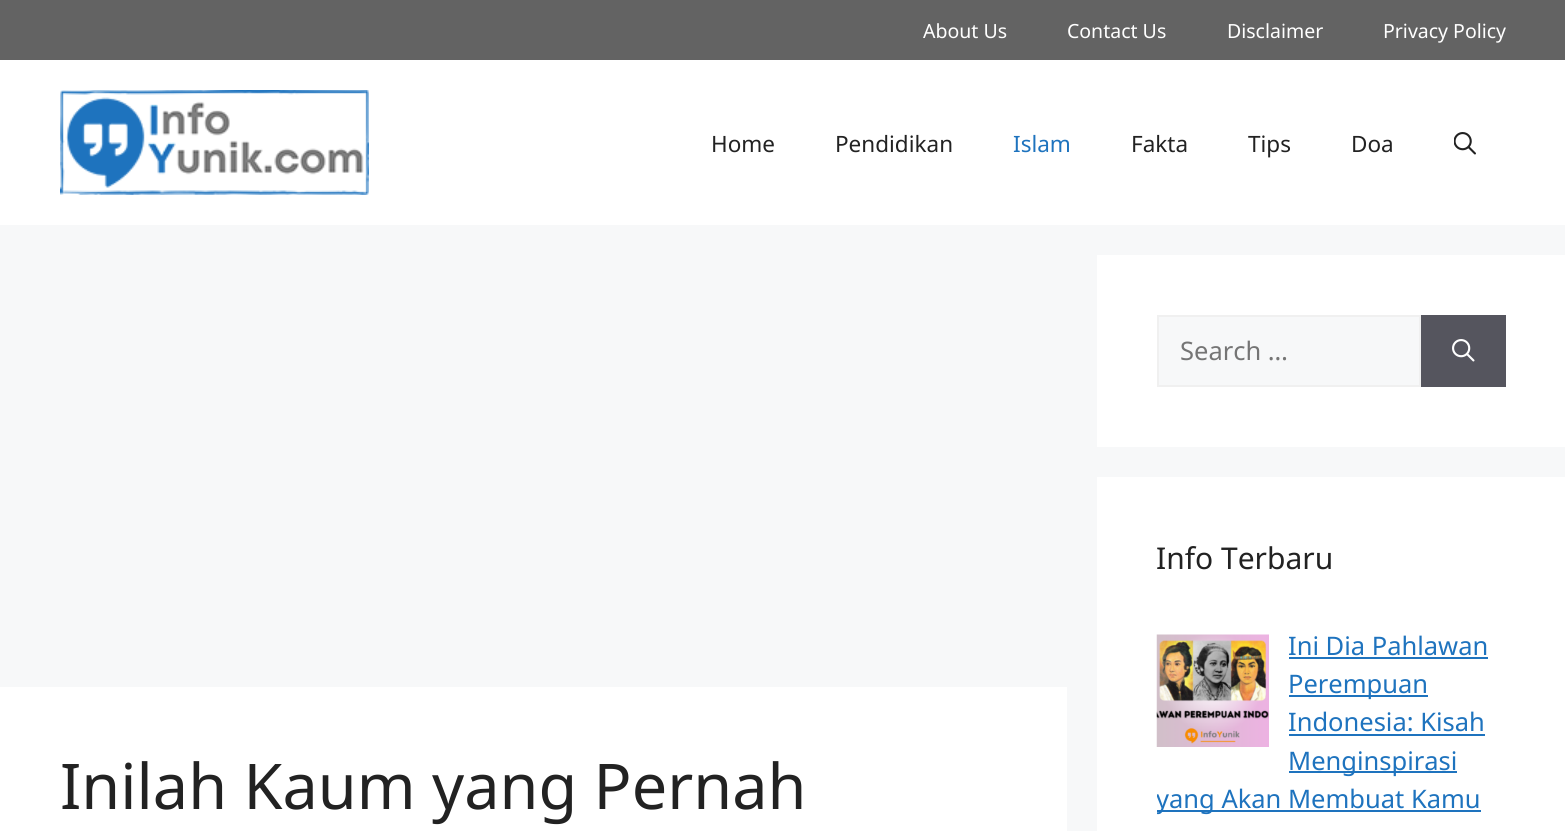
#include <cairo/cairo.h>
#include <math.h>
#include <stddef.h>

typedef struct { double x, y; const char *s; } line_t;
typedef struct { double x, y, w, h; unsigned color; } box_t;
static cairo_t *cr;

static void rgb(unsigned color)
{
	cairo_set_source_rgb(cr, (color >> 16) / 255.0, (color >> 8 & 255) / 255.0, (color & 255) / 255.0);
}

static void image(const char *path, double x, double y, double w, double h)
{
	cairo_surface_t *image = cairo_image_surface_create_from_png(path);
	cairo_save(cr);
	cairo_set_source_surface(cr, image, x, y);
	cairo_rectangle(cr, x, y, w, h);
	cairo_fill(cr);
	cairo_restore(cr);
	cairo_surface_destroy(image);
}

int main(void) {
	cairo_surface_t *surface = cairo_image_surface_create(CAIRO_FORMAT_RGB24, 1565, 831);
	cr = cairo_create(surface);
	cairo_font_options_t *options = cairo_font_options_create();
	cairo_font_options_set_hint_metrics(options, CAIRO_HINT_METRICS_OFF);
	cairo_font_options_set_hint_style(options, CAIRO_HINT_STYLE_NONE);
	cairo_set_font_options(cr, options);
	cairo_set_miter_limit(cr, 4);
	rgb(0xf7f8f9);
	cairo_paint(cr);
	rgb(0x636363);
	cairo_rectangle(cr, 0, 0, 1565, 60);
	cairo_fill(cr);
	rgb(0xffffff);
	cairo_rectangle(cr, 0, 60, 1565, 165);
	cairo_fill(cr);
	image("img/1.png", 60, 90, 309, 105);
	image("img/2.png", 1454, 132, 22, 23);
	cairo_rectangle(cr, 0, 687, 1067, 144);
	cairo_fill(cr);
	cairo_rectangle(cr, 1097, 255, 468, 192);
	cairo_fill(cr);
	rgb(0xf7f8f9);
	cairo_rectangle(cr, 1158, 316, 262, 70);
	cairo_fill_preserve(cr);
	rgb(0xf0f0f0);
	cairo_stroke(cr);
	rgb(0x55555e);
	cairo_rectangle(cr, 1421, 315, 85, 72);
	cairo_fill(cr);
	image("img/3.png", 1452, 339, 23, 23);
	rgb(0xffffff);
	cairo_rectangle(cr, 1097, 477, 468, 354);
	cairo_fill(cr);
	image("img/4.png", 1156, 634, 113, 113);
	{
		static const box_t items[] = {
			{1289, 657, 199, 2, 0x1e73be},
			{1289, 695, 139, 2, 0x1e73be},
			{1289, 734, 196, 2, 0x1e73be},
			{1289, 771, 168, 2, 0x1e73be},
			{1157, 810, 324, 2, 0x1e73be},
		};
		for (size_t i = 0; i < sizeof items / sizeof *items; i++) {
			rgb(items[i].color);
			cairo_rectangle(cr, items[i].x, items[i].y, items[i].w, items[i].h);
			cairo_fill(cr);
		}
	}
	cairo_select_font_face(cr, "Noto Sans", CAIRO_FONT_SLANT_NORMAL, CAIRO_FONT_WEIGHT_NORMAL);
	cairo_set_font_size(cr, 19.5);
	rgb(0xffffff);
	{
		static const line_t items[] = {
			{923, 38, "About Us"},
			{1067, 38, "Contact Us"},
			{1227, 38, "Disclaimer"},
			{1383, 38, "Privacy Policy"},
		};
		for (size_t i = 0; i < sizeof items / sizeof *items; i++) {
			cairo_move_to(cr, items[i].x, items[i].y);
			cairo_show_text(cr, items[i].s);
		}
	}
	cairo_set_font_size(cr, 22.5);
	rgb(0x222222);
	cairo_move_to(cr, 711, 152);
	cairo_show_text(cr, "Home");
	cairo_move_to(cr, 835, 152);
	cairo_show_text(cr, "Pendidikan");
	rgb(0x1e73be);
	cairo_move_to(cr, 1013, 152);
	cairo_show_text(cr, "Islam");
	rgb(0x222222);
	{
		static const line_t items[] = {
			{1131, 152, "Fakta"},
			{1248, 152, "Tips"},
			{1351, 152, "Doa"},
		};
		for (size_t i = 0; i < sizeof items / sizeof *items; i++) {
			cairo_move_to(cr, items[i].x, items[i].y);
			cairo_show_text(cr, items[i].s);
		}
	}
	cairo_set_font_size(cr, 63);
	cairo_move_to(cr, 60, 809);
	cairo_show_text(cr, "Inilah Kaum yang Pernah");
	cairo_set_font_size(cr, 25.5);
	rgb(0x757575);
	cairo_move_to(cr, 1180, 360);
	cairo_show_text(cr, "Search …");
	cairo_set_font_size(cr, 30);
	rgb(0x222222);
	cairo_move_to(cr, 1156, 569);
	cairo_show_text(cr, "Info Terbaru");
	cairo_set_font_size(cr, 25.5);
	rgb(0x1e73be);
	{
		static const line_t items[] = {
			{1288, 655, "Ini Dia Pahlawan"},
			{1288, 693, "Perempuan"},
			{1288, 731, "Indonesia: Kisah"},
			{1288, 770, "Menginspirasi"},
		};
		for (size_t i = 0; i < sizeof items / sizeof *items; i++) {
			cairo_move_to(cr, items[i].x, items[i].y);
			cairo_show_text(cr, items[i].s);
		}
	}
	cairo_save(cr);
	cairo_rectangle(cr, 1157, 627, 349, 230);
	cairo_clip(cr);
	cairo_move_to(cr, 1156, 808);
	cairo_show_text(cr, "yang Akan Membuat Kamu");
	cairo_restore(cr);
	cairo_surface_write_to_png(surface, "page.png");
	cairo_font_options_destroy(options);
	cairo_destroy(cr);
	cairo_surface_destroy(surface);
	return 0;
}
